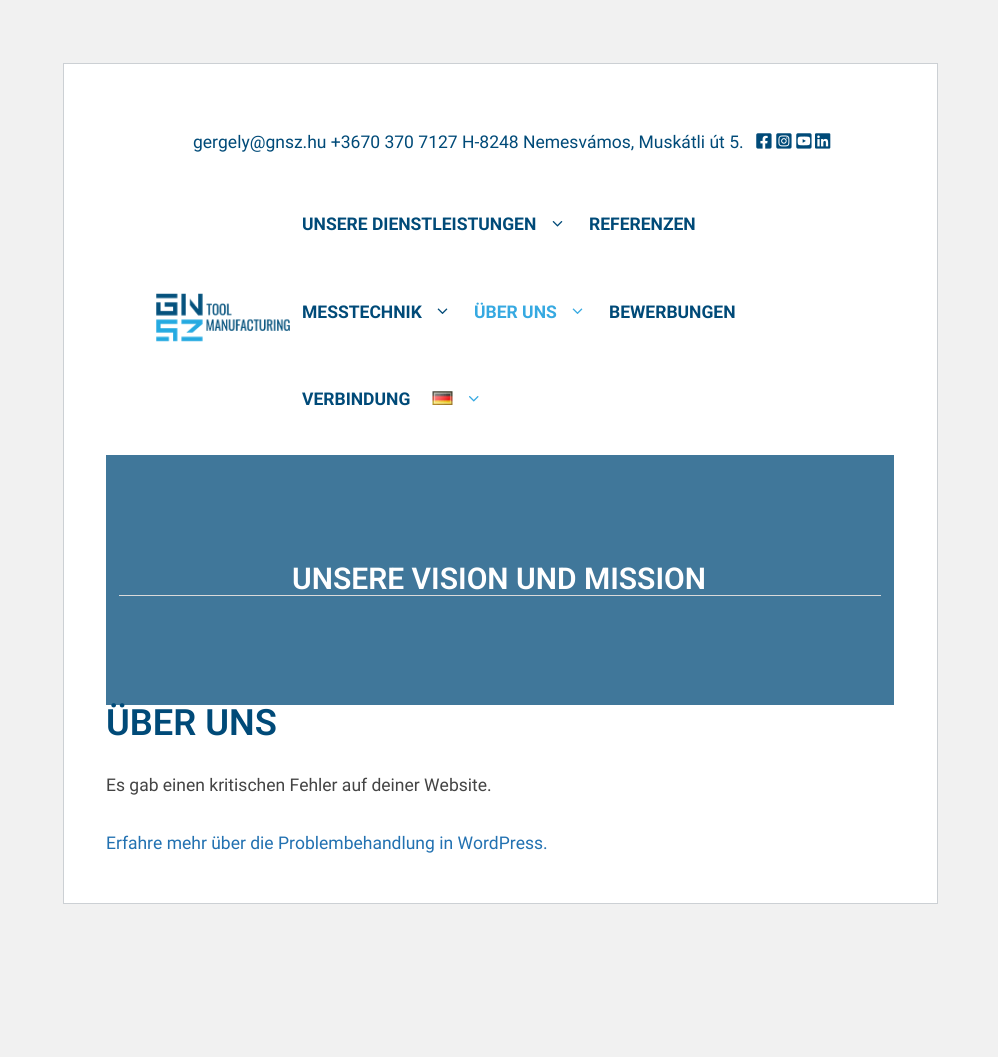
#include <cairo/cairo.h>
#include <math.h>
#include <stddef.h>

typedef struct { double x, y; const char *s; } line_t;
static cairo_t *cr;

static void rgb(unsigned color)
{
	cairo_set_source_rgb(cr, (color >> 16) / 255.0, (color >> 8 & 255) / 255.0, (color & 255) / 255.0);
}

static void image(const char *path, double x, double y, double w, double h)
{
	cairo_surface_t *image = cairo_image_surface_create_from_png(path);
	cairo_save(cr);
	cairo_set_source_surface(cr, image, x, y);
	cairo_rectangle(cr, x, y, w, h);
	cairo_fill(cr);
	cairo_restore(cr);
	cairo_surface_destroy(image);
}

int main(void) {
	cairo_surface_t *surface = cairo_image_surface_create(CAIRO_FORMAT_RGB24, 998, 1057);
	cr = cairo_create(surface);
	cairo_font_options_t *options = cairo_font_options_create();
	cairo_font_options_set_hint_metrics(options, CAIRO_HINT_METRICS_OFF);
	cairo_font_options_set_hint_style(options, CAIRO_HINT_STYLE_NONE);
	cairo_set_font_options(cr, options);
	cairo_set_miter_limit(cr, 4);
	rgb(0xf1f1f1);
	cairo_paint(cr);
	rgb(0xffffff);
	cairo_rectangle(cr, 63.5, 63.5, 874, 840);
	cairo_fill_preserve(cr);
	rgb(0xccd0d4);
	cairo_set_line_width(cr, 1);
	cairo_stroke(cr);
	image("img/1.png", 756, 133, 16, 16);
	image("img/2.png", 776, 133, 16, 16);
	image("img/3.png", 796, 133, 16, 16);
	image("img/4.png", 815, 133, 16, 16);
	image("img/5.png", 156, 293, 134, 49);
	image("img/6.png", 552, 221, 11, 6);
	image("img/7.png", 437, 308, 11, 6);
	image("img/8.png", 572, 308, 11, 6);
	image("img/9.png", 432, 391, 21, 14);
	image("img/10.png", 469, 396, 10, 6);
	rgb(0x40779a);
	cairo_rectangle(cr, 106, 455, 788, 250);
	cairo_fill(cr);
	rgb(0xdadada);
	cairo_rectangle(cr, 119, 595, 762, 1);
	cairo_fill(cr);
	cairo_select_font_face(cr, "Roboto", CAIRO_FONT_SLANT_NORMAL, CAIRO_FONT_WEIGHT_NORMAL);
	cairo_set_font_size(cr, 17.5);
	rgb(0x004a78);
	cairo_move_to(cr, 193, 148);
	cairo_show_text(cr, "gergely@gnsz.hu +3670 370 7127 H-8248 Nemesvámos, Muskátli út 5.");
	cairo_select_font_face(cr, "Roboto", CAIRO_FONT_SLANT_NORMAL, CAIRO_FONT_WEIGHT_BOLD);
	{
		static const line_t items[] = {
			{302, 230, "UNSERE DIENSTLEISTUNGEN"},
			{589, 230, "REFERENZEN"},
			{302, 318, "MESSTECHNIK"},
		};
		for (size_t i = 0; i < sizeof items / sizeof *items; i++) {
			cairo_move_to(cr, items[i].x, items[i].y);
			cairo_show_text(cr, items[i].s);
		}
	}
	rgb(0x36a9e1);
	cairo_move_to(cr, 474, 318);
	cairo_show_text(cr, "ÜBER UNS");
	rgb(0x004a78);
	cairo_move_to(cr, 609, 318);
	cairo_show_text(cr, "BEWERBUNGEN");
	cairo_move_to(cr, 302, 405);
	cairo_show_text(cr, "VERBINDUNG");
	cairo_select_font_face(cr, "Roboto SemiBold", CAIRO_FONT_SLANT_NORMAL, CAIRO_FONT_WEIGHT_NORMAL);
	cairo_set_font_size(cr, 30);
	rgb(0xffffff);
	cairo_move_to(cr, 292, 589);
	cairo_show_text(cr, "UNSERE VISION UND MISSION");
	cairo_set_font_size(cr, 36.25);
	rgb(0x004a78);
	cairo_move_to(cr, 106, 735);
	cairo_show_text(cr, "ÜBER UNS");
	cairo_select_font_face(cr, "Roboto", CAIRO_FONT_SLANT_NORMAL, CAIRO_FONT_WEIGHT_NORMAL);
	cairo_set_font_size(cr, 17.5);
	rgb(0x444444);
	cairo_move_to(cr, 106, 791);
	cairo_show_text(cr, "Es gab einen kritischen Fehler auf deiner Website.");
	rgb(0x2271b1);
	cairo_move_to(cr, 106, 849);
	cairo_show_text(cr, "Erfahre mehr über die Problembehandlung in WordPress.");
	cairo_surface_write_to_png(surface, "page.png");
	cairo_font_options_destroy(options);
	cairo_destroy(cr);
	cairo_surface_destroy(surface);
	return 0;
}
